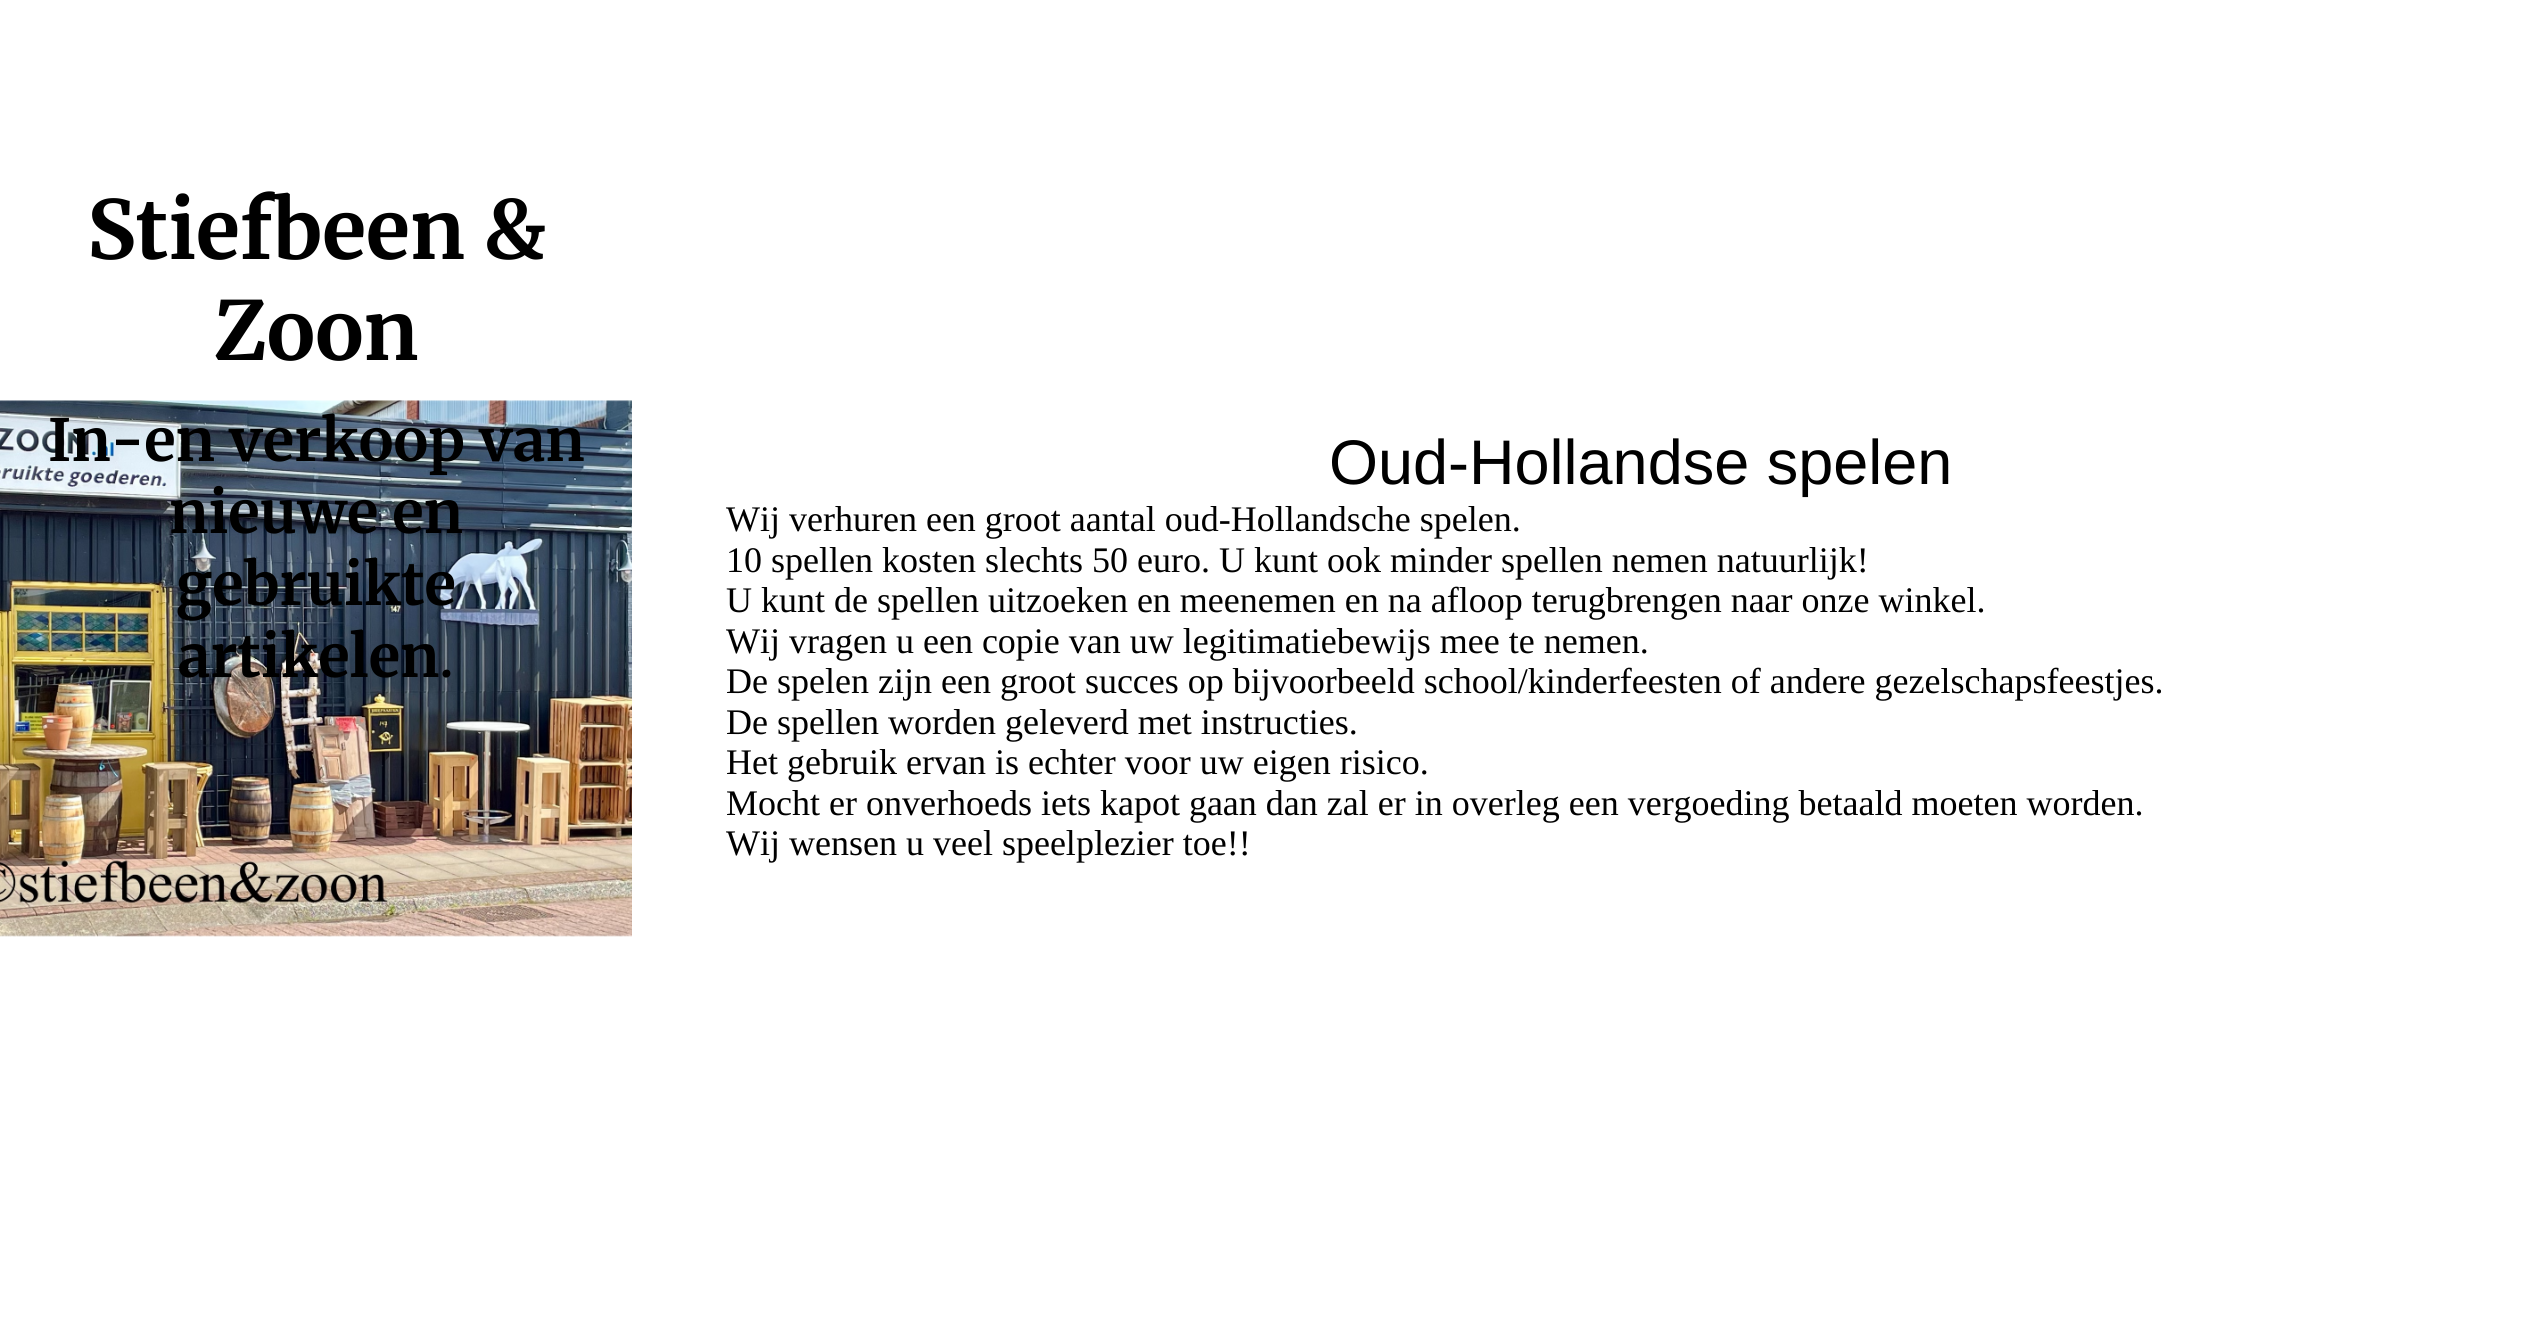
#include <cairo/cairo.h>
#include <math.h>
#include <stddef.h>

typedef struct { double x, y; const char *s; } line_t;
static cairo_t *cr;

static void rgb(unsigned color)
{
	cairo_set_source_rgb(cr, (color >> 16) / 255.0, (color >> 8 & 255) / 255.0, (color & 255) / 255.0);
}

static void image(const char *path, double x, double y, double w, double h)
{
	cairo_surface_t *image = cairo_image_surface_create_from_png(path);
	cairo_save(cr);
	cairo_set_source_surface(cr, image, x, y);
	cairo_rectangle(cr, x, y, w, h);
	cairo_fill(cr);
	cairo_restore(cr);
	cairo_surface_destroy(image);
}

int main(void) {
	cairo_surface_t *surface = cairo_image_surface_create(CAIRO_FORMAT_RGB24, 2525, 1335);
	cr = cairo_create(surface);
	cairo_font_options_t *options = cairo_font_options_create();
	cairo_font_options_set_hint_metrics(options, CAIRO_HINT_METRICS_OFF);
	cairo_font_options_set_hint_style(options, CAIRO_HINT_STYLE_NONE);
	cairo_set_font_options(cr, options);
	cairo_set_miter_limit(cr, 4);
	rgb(0xffffff);
	cairo_paint(cr);
	image("img/1.png", 0, 400, 632, 537);
	cairo_select_font_face(cr, "Merriweather", CAIRO_FONT_SLANT_NORMAL, CAIRO_FONT_WEIGHT_BOLD);
	cairo_set_font_size(cr, 81);
	rgb(0x000000);
	cairo_move_to(cr, 87, 259);
	cairo_show_text(cr, "Stiefbeen &");
	cairo_move_to(cr, 214, 360);
	cairo_show_text(cr, "Zoon");
	cairo_set_font_size(cr, 58.1);
	{
		static const line_t items[] = {
			{48, 461, "In-en verkoop van"},
			{169, 533, "nieuwe en"},
			{176, 605, "gebruikte"},
			{178, 677, "artikelen"},
		};
		for (size_t i = 0; i < sizeof items / sizeof *items; i++) {
			cairo_move_to(cr, items[i].x, items[i].y);
			cairo_show_text(cr, items[i].s);
		}
	}
	cairo_select_font_face(cr, "Merriweather", CAIRO_FONT_SLANT_NORMAL, CAIRO_FONT_WEIGHT_NORMAL);
	cairo_move_to(cr, 439, 677);
	cairo_show_text(cr, ".");
	cairo_select_font_face(cr, "Liberation Sans", CAIRO_FONT_SLANT_NORMAL, CAIRO_FONT_WEIGHT_NORMAL);
	cairo_set_font_size(cr, 63);
	cairo_move_to(cr, 1329, 484);
	cairo_show_text(cr, "Oud-Hollandse spelen");
	cairo_select_font_face(cr, "Liberation Serif", CAIRO_FONT_SLANT_NORMAL, CAIRO_FONT_WEIGHT_NORMAL);
	cairo_set_font_size(cr, 36);
	{
		static const line_t items[] = {
			{726, 531, "Wij verhuren een groot aantal oud-Hollandsche spelen."},
			{726, 572, "10 spellen kosten slechts 50 euro. U kunt ook minder spellen nemen natuurlijk!"},
			{726, 612, "U kunt de spellen uitzoeken en meenemen en na afloop terugbrengen naar onze winkel."},
			{726, 653, "Wij vragen u een copie van uw legitimatiebewijs mee te nemen."},
			{726, 693, "De spelen zijn een groot succes op bijvoorbeeld school/kinderfeesten of andere gezelschapsfeestjes."},
			{726, 734, "De spellen worden geleverd met instructies."},
			{726, 774, "Het gebruik ervan is echter voor uw eigen risico."},
			{726, 815, "Mocht er onverhoeds iets kapot gaan dan zal er in overleg een vergoeding betaald moeten worden."},
			{726, 855, "Wij wensen u veel speelplezier toe!!"},
		};
		for (size_t i = 0; i < sizeof items / sizeof *items; i++) {
			cairo_move_to(cr, items[i].x, items[i].y);
			cairo_show_text(cr, items[i].s);
		}
	}
	cairo_surface_write_to_png(surface, "page.png");
	cairo_font_options_destroy(options);
	cairo_destroy(cr);
	cairo_surface_destroy(surface);
	return 0;
}
